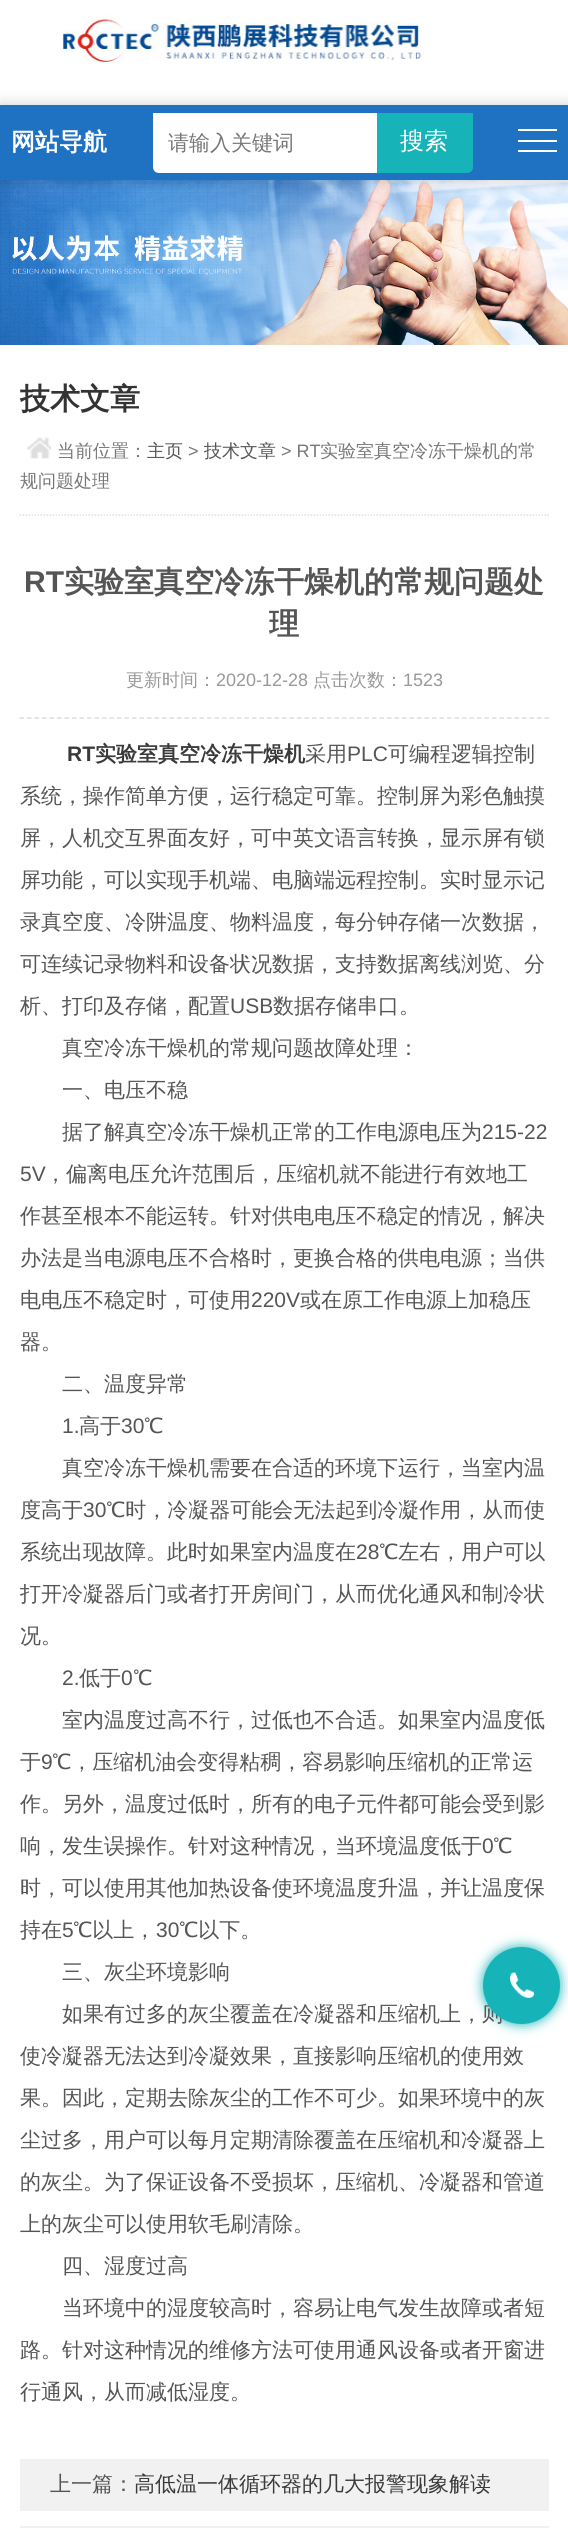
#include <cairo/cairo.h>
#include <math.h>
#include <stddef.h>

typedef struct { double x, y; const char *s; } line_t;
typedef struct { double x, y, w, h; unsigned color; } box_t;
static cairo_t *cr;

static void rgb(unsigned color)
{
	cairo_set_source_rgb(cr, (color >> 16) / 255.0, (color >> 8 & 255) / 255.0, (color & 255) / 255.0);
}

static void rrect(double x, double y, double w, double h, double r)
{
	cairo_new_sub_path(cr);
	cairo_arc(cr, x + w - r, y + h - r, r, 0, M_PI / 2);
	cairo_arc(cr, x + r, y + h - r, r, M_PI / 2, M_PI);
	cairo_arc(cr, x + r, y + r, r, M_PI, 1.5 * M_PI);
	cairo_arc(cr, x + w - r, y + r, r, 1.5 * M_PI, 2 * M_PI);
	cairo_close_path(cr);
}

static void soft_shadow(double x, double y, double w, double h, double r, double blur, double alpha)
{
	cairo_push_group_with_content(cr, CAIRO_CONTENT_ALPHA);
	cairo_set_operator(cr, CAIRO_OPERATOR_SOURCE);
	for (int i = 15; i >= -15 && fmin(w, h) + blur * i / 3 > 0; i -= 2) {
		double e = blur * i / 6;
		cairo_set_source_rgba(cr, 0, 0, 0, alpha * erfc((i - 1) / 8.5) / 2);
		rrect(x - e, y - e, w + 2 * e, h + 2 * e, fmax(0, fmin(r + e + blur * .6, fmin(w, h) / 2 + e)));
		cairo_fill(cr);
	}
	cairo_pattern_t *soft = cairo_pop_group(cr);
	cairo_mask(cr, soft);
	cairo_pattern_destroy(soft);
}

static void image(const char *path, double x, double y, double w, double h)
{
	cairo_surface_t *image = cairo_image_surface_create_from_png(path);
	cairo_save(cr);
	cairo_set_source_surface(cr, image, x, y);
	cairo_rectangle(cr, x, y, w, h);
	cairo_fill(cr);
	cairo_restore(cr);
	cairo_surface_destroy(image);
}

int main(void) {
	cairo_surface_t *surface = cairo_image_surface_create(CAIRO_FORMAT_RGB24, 568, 2528);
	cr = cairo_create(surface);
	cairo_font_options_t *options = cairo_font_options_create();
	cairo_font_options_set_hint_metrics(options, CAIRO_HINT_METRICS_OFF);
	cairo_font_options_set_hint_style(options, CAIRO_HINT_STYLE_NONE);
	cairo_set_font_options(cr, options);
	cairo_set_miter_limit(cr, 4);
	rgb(0xffffff);
	cairo_paint(cr);
	image("img/1.png", 61, 15, 362, 49);
	image("img/2.png", 0, 180, 568, 165);
	rgb(0x000000);
	soft_shadow(0, 105, 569, 75, 0, 7.5, 0.2);
	{
		static const box_t items[] = {
			{0, 105, 568, 75, 0x1f71c2},
			{518, 129, 39, 2, 0xffffff},
			{518, 140, 39, 2, 0xffffff},
			{518, 150, 39, 2, 0xffffff},
		};
		for (size_t i = 0; i < sizeof items / sizeof *items; i++) {
			rgb(items[i].color);
			cairo_rectangle(cr, items[i].x, items[i].y, items[i].w, items[i].h);
			cairo_fill(cr);
		}
	}
	cairo_new_path(cr);
	cairo_move_to(cr, 153, 113);
	cairo_line_to(cr, 377, 113);
	cairo_line_to(cr, 377, 173);
	cairo_line_to(cr, 159, 173);
	cairo_curve_to(cr, 155.5, 173, 153, 170.5, 153, 167);
	cairo_close_path(cr);
	cairo_fill(cr);
	rgb(0x16b4b9);
	cairo_new_path(cr);
	cairo_move_to(cr, 377, 113);
	cairo_line_to(cr, 473, 113);
	cairo_line_to(cr, 473, 167);
	cairo_curve_to(cr, 473, 170.5, 470.5, 173, 467, 173);
	cairo_line_to(cr, 377, 173);
	cairo_close_path(cr);
	cairo_fill(cr);
	cairo_new_path(cr);
	cairo_move_to(cr, 19.5, 515);
	cairo_line_to(cr, 549, 515);
	rgb(0xdedede);
	cairo_set_line_width(cr, 1.5);
	cairo_set_dash(cr, (double[]){1.5, 1.5}, 2, 0);
	cairo_stroke(cr);
	image("img/3.png", 27, 437, 24, 22);
	cairo_new_path(cr);
	cairo_move_to(cr, 19.5, 718);
	cairo_line_to(cr, 549, 718);
	cairo_set_dash(cr, (double[]){4.5, 3}, 2, 0);
	cairo_stroke(cr);
	rgb(0xf1f1f1);
	cairo_rectangle(cr, 20, 2459, 529, 52);
	cairo_fill(cr);
	cairo_rectangle(cr, 20, 2526, 529, 2);
	cairo_fill(cr);
	rgb(0x16b4b9);
	soft_shadow(483, 1947, 77, 77, 38.5, 6, 1);
	cairo_select_font_face(cr, "WenQuanYi Zen Hei", CAIRO_FONT_SLANT_NORMAL, CAIRO_FONT_WEIGHT_BOLD);
	cairo_set_font_size(cr, 24);
	rgb(0xffffff);
	cairo_move_to(cr, 11, 150);
	cairo_show_text(cr, "网站导航");
	cairo_select_font_face(cr, "WenQuanYi Zen Hei Medium", CAIRO_FONT_SLANT_NORMAL, CAIRO_FONT_WEIGHT_NORMAL);
	cairo_set_font_size(cr, 21);
	rgb(0x777777);
	cairo_move_to(cr, 168, 150);
	cairo_show_text(cr, "请输入关键词");
	cairo_set_font_size(cr, 24);
	rgb(0xffffff);
	cairo_move_to(cr, 400, 149);
	cairo_show_text(cr, "搜索");
	cairo_select_font_face(cr, "WenQuanYi Zen Hei", CAIRO_FONT_SLANT_NORMAL, CAIRO_FONT_WEIGHT_BOLD);
	cairo_set_font_size(cr, 30);
	rgb(0x333333);
	cairo_move_to(cr, 20, 409);
	cairo_show_text(cr, "技术文章");
	cairo_select_font_face(cr, "WenQuanYi Zen Hei Medium", CAIRO_FONT_SLANT_NORMAL, CAIRO_FONT_WEIGHT_NORMAL);
	cairo_set_font_size(cr, 18);
	rgb(0x777777);
	cairo_move_to(cr, 57, 457);
	cairo_show_text(cr, "当前位置：");
	rgb(0x555555);
	cairo_move_to(cr, 147, 457);
	cairo_show_text(cr, "主页");
	cairo_select_font_face(cr, "Liberation Sans", CAIRO_FONT_SLANT_NORMAL, CAIRO_FONT_WEIGHT_NORMAL);
	rgb(0x777777);
	cairo_move_to(cr, 188, 457);
	cairo_show_text(cr, ">");
	cairo_select_font_face(cr, "WenQuanYi Zen Hei Medium", CAIRO_FONT_SLANT_NORMAL, CAIRO_FONT_WEIGHT_NORMAL);
	rgb(0x555555);
	cairo_move_to(cr, 204, 457);
	cairo_show_text(cr, "技术文章");
	cairo_select_font_face(cr, "Liberation Sans", CAIRO_FONT_SLANT_NORMAL, CAIRO_FONT_WEIGHT_NORMAL);
	rgb(0x777777);
	cairo_move_to(cr, 281, 457);
	cairo_show_text(cr, "> RT");
	cairo_select_font_face(cr, "WenQuanYi Zen Hei Medium", CAIRO_FONT_SLANT_NORMAL, CAIRO_FONT_WEIGHT_NORMAL);
	cairo_move_to(cr, 320, 457);
	cairo_show_text(cr, "实验室真空冷冻干燥机的常");
	cairo_move_to(cr, 20, 487);
	cairo_show_text(cr, "规问题处理");
	cairo_select_font_face(cr, "Liberation Sans", CAIRO_FONT_SLANT_NORMAL, CAIRO_FONT_WEIGHT_BOLD);
	cairo_set_font_size(cr, 30);
	rgb(0x555555);
	cairo_move_to(cr, 24, 592);
	cairo_show_text(cr, "RT");
	cairo_select_font_face(cr, "WenQuanYi Zen Hei", CAIRO_FONT_SLANT_NORMAL, CAIRO_FONT_WEIGHT_BOLD);
	cairo_move_to(cr, 64, 592);
	cairo_show_text(cr, "实验室真空冷冻干燥机的常规问题处");
	cairo_move_to(cr, 269, 634);
	cairo_show_text(cr, "理");
	cairo_select_font_face(cr, "WenQuanYi Zen Hei Medium", CAIRO_FONT_SLANT_NORMAL, CAIRO_FONT_WEIGHT_NORMAL);
	cairo_set_font_size(cr, 18);
	rgb(0x999999);
	cairo_move_to(cr, 126, 686);
	cairo_show_text(cr, "更新时间：");
	cairo_select_font_face(cr, "Liberation Sans", CAIRO_FONT_SLANT_NORMAL, CAIRO_FONT_WEIGHT_NORMAL);
	cairo_move_to(cr, 216, 686);
	cairo_show_text(cr, "2020-12-28");
	cairo_select_font_face(cr, "WenQuanYi Zen Hei Medium", CAIRO_FONT_SLANT_NORMAL, CAIRO_FONT_WEIGHT_NORMAL);
	cairo_move_to(cr, 313, 686);
	cairo_show_text(cr, "点击次数：");
	cairo_select_font_face(cr, "Liberation Sans", CAIRO_FONT_SLANT_NORMAL, CAIRO_FONT_WEIGHT_NORMAL);
	cairo_move_to(cr, 403, 686);
	cairo_show_text(cr, "1523");
	cairo_select_font_face(cr, "Liberation Sans", CAIRO_FONT_SLANT_NORMAL, CAIRO_FONT_WEIGHT_BOLD);
	cairo_set_font_size(cr, 21);
	rgb(0x3a3a3a);
	cairo_move_to(cr, 67, 761);
	cairo_show_text(cr, "RT");
	cairo_select_font_face(cr, "WenQuanYi Zen Hei", CAIRO_FONT_SLANT_NORMAL, CAIRO_FONT_WEIGHT_BOLD);
	cairo_move_to(cr, 95, 761);
	cairo_show_text(cr, "实验室真空冷冻干燥机");
	cairo_select_font_face(cr, "WenQuanYi Zen Hei Medium", CAIRO_FONT_SLANT_NORMAL, CAIRO_FONT_WEIGHT_NORMAL);
	rgb(0x555555);
	cairo_move_to(cr, 305, 761);
	cairo_show_text(cr, "采用");
	cairo_select_font_face(cr, "Liberation Sans", CAIRO_FONT_SLANT_NORMAL, CAIRO_FONT_WEIGHT_NORMAL);
	cairo_move_to(cr, 347, 761);
	cairo_show_text(cr, "PLC");
	cairo_select_font_face(cr, "WenQuanYi Zen Hei Medium", CAIRO_FONT_SLANT_NORMAL, CAIRO_FONT_WEIGHT_NORMAL);
	{
		static const line_t items[] = {
			{388, 761, "可编程逻辑控制"},
			{20, 803, "系统，操作简单方便，运行稳定可靠。控制屏为彩色触摸"},
			{20, 845, "屏，人机交互界面友好，可中英文语言转换，显示屏有锁"},
			{20, 887, "屏功能，可以实现手机端、电脑端远程控制。实时显示记"},
			{20, 929, "录真空度、冷阱温度、物料温度，每分钟存储一次数据，"},
			{20, 971, "可连续记录物料和设备状况数据，支持数据离线浏览、分"},
			{20, 1013, "析、打印及存储，配置"},
		};
		for (size_t i = 0; i < sizeof items / sizeof *items; i++) {
			cairo_move_to(cr, items[i].x, items[i].y);
			cairo_show_text(cr, items[i].s);
		}
	}
	cairo_select_font_face(cr, "Liberation Sans", CAIRO_FONT_SLANT_NORMAL, CAIRO_FONT_WEIGHT_NORMAL);
	cairo_move_to(cr, 230, 1013);
	cairo_show_text(cr, "USB");
	cairo_select_font_face(cr, "WenQuanYi Zen Hei Medium", CAIRO_FONT_SLANT_NORMAL, CAIRO_FONT_WEIGHT_NORMAL);
	{
		static const line_t items[] = {
			{273, 1013, "数据存储串口。"},
			{62, 1055, "真空冷冻干燥机的常规问题故障处理："},
			{62, 1097, "一、电压不稳"},
			{62, 1139, "据了解真空冷冻干燥机正常的工作电源电压为"},
		};
		for (size_t i = 0; i < sizeof items / sizeof *items; i++) {
			cairo_move_to(cr, items[i].x, items[i].y);
			cairo_show_text(cr, items[i].s);
		}
	}
	cairo_select_font_face(cr, "Liberation Sans", CAIRO_FONT_SLANT_NORMAL, CAIRO_FONT_WEIGHT_NORMAL);
	cairo_move_to(cr, 482, 1139);
	cairo_show_text(cr, "215-22");
	cairo_move_to(cr, 20, 1181);
	cairo_show_text(cr, "5V");
	cairo_select_font_face(cr, "WenQuanYi Zen Hei Medium", CAIRO_FONT_SLANT_NORMAL, CAIRO_FONT_WEIGHT_NORMAL);
	{
		static const line_t items[] = {
			{45, 1181, "，偏离电压允许范围后，压缩机就不能进行有效地工"},
			{20, 1223, "作甚至根本不能运转。针对供电电压不稳定的情况，解决"},
			{20, 1265, "办法是当电源电压不合格时，更换合格的供电电源；当供"},
			{20, 1307, "电电压不稳定时，可使用"},
		};
		for (size_t i = 0; i < sizeof items / sizeof *items; i++) {
			cairo_move_to(cr, items[i].x, items[i].y);
			cairo_show_text(cr, items[i].s);
		}
	}
	cairo_select_font_face(cr, "Liberation Sans", CAIRO_FONT_SLANT_NORMAL, CAIRO_FONT_WEIGHT_NORMAL);
	cairo_move_to(cr, 251, 1307);
	cairo_show_text(cr, "220V");
	cairo_select_font_face(cr, "WenQuanYi Zen Hei Medium", CAIRO_FONT_SLANT_NORMAL, CAIRO_FONT_WEIGHT_NORMAL);
	{
		static const line_t items[] = {
			{300, 1307, "或在原工作电源上加稳压"},
			{20, 1349, "器。"},
			{62, 1391, "二、温度异常"},
		};
		for (size_t i = 0; i < sizeof items / sizeof *items; i++) {
			cairo_move_to(cr, items[i].x, items[i].y);
			cairo_show_text(cr, items[i].s);
		}
	}
	cairo_select_font_face(cr, "Liberation Sans", CAIRO_FONT_SLANT_NORMAL, CAIRO_FONT_WEIGHT_NORMAL);
	cairo_move_to(cr, 62, 1433);
	cairo_show_text(cr, "1.");
	cairo_select_font_face(cr, "WenQuanYi Zen Hei Medium", CAIRO_FONT_SLANT_NORMAL, CAIRO_FONT_WEIGHT_NORMAL);
	cairo_move_to(cr, 79, 1433);
	cairo_show_text(cr, "高于");
	cairo_select_font_face(cr, "Liberation Sans", CAIRO_FONT_SLANT_NORMAL, CAIRO_FONT_WEIGHT_NORMAL);
	cairo_move_to(cr, 121, 1433);
	cairo_show_text(cr, "30");
	cairo_select_font_face(cr, "WenQuanYi Zen Hei Medium", CAIRO_FONT_SLANT_NORMAL, CAIRO_FONT_WEIGHT_NORMAL);
	{
		static const line_t items[] = {
			{144, 1433, "℃"},
			{62, 1475, "真空冷冻干燥机需要在合适的环境下运行，当室内温"},
			{20, 1517, "度高于"},
		};
		for (size_t i = 0; i < sizeof items / sizeof *items; i++) {
			cairo_move_to(cr, items[i].x, items[i].y);
			cairo_show_text(cr, items[i].s);
		}
	}
	cairo_select_font_face(cr, "Liberation Sans", CAIRO_FONT_SLANT_NORMAL, CAIRO_FONT_WEIGHT_NORMAL);
	cairo_move_to(cr, 83, 1517);
	cairo_show_text(cr, "30");
	cairo_select_font_face(cr, "WenQuanYi Zen Hei Medium", CAIRO_FONT_SLANT_NORMAL, CAIRO_FONT_WEIGHT_NORMAL);
	cairo_move_to(cr, 106, 1517);
	cairo_show_text(cr, "℃时，冷凝器可能会无法起到冷凝作用，从而使");
	cairo_move_to(cr, 20, 1559);
	cairo_show_text(cr, "系统出现故障。此时如果室内温度在");
	cairo_select_font_face(cr, "Liberation Sans", CAIRO_FONT_SLANT_NORMAL, CAIRO_FONT_WEIGHT_NORMAL);
	cairo_move_to(cr, 356, 1559);
	cairo_show_text(cr, "28");
	cairo_select_font_face(cr, "WenQuanYi Zen Hei Medium", CAIRO_FONT_SLANT_NORMAL, CAIRO_FONT_WEIGHT_NORMAL);
	{
		static const line_t items[] = {
			{379, 1559, "℃左右，用户可以"},
			{20, 1601, "打开冷凝器后门或者打开房间门，从而优化通风和制冷状"},
			{20, 1643, "况。"},
		};
		for (size_t i = 0; i < sizeof items / sizeof *items; i++) {
			cairo_move_to(cr, items[i].x, items[i].y);
			cairo_show_text(cr, items[i].s);
		}
	}
	cairo_select_font_face(cr, "Liberation Sans", CAIRO_FONT_SLANT_NORMAL, CAIRO_FONT_WEIGHT_NORMAL);
	cairo_move_to(cr, 62, 1685);
	cairo_show_text(cr, "2.");
	cairo_select_font_face(cr, "WenQuanYi Zen Hei Medium", CAIRO_FONT_SLANT_NORMAL, CAIRO_FONT_WEIGHT_NORMAL);
	cairo_move_to(cr, 79, 1685);
	cairo_show_text(cr, "低于");
	cairo_select_font_face(cr, "Liberation Sans", CAIRO_FONT_SLANT_NORMAL, CAIRO_FONT_WEIGHT_NORMAL);
	cairo_move_to(cr, 121, 1685);
	cairo_show_text(cr, "0");
	cairo_select_font_face(cr, "WenQuanYi Zen Hei Medium", CAIRO_FONT_SLANT_NORMAL, CAIRO_FONT_WEIGHT_NORMAL);
	{
		static const line_t items[] = {
			{133, 1685, "℃"},
			{62, 1727, "室内温度过高不行，过低也不合适。如果室内温度低"},
			{20, 1769, "于"},
		};
		for (size_t i = 0; i < sizeof items / sizeof *items; i++) {
			cairo_move_to(cr, items[i].x, items[i].y);
			cairo_show_text(cr, items[i].s);
		}
	}
	cairo_select_font_face(cr, "Liberation Sans", CAIRO_FONT_SLANT_NORMAL, CAIRO_FONT_WEIGHT_NORMAL);
	cairo_move_to(cr, 41, 1769);
	cairo_show_text(cr, "9");
	cairo_select_font_face(cr, "WenQuanYi Zen Hei Medium", CAIRO_FONT_SLANT_NORMAL, CAIRO_FONT_WEIGHT_NORMAL);
	{
		static const line_t items[] = {
			{52, 1769, "℃，压缩机油会变得粘稠，容易影响压缩机的正常运"},
			{20, 1811, "作。另外，温度过低时，所有的电子元件都可能会受到影"},
			{20, 1853, "响，发生误操作。针对这种情况，当环境温度低于"},
		};
		for (size_t i = 0; i < sizeof items / sizeof *items; i++) {
			cairo_move_to(cr, items[i].x, items[i].y);
			cairo_show_text(cr, items[i].s);
		}
	}
	cairo_select_font_face(cr, "Liberation Sans", CAIRO_FONT_SLANT_NORMAL, CAIRO_FONT_WEIGHT_NORMAL);
	cairo_move_to(cr, 482, 1853);
	cairo_show_text(cr, "0");
	cairo_select_font_face(cr, "WenQuanYi Zen Hei Medium", CAIRO_FONT_SLANT_NORMAL, CAIRO_FONT_WEIGHT_NORMAL);
	{
		static const line_t items[] = {
			{493, 1853, "℃"},
			{20, 1895, "时，可以使用其他加热设备使环境温度升温，并让温度保"},
			{20, 1937, "持在"},
		};
		for (size_t i = 0; i < sizeof items / sizeof *items; i++) {
			cairo_move_to(cr, items[i].x, items[i].y);
			cairo_show_text(cr, items[i].s);
		}
	}
	cairo_select_font_face(cr, "Liberation Sans", CAIRO_FONT_SLANT_NORMAL, CAIRO_FONT_WEIGHT_NORMAL);
	cairo_move_to(cr, 62, 1937);
	cairo_show_text(cr, "5");
	cairo_select_font_face(cr, "WenQuanYi Zen Hei Medium", CAIRO_FONT_SLANT_NORMAL, CAIRO_FONT_WEIGHT_NORMAL);
	cairo_move_to(cr, 73, 1937);
	cairo_show_text(cr, "℃以上，");
	cairo_select_font_face(cr, "Liberation Sans", CAIRO_FONT_SLANT_NORMAL, CAIRO_FONT_WEIGHT_NORMAL);
	cairo_move_to(cr, 156, 1937);
	cairo_show_text(cr, "30");
	cairo_select_font_face(cr, "WenQuanYi Zen Hei Medium", CAIRO_FONT_SLANT_NORMAL, CAIRO_FONT_WEIGHT_NORMAL);
	{
		static const line_t items[] = {
			{179, 1937, "℃以下。"},
			{62, 1979, "三、灰尘环境影响"},
			{62, 2021, "如果有过多的灰尘覆盖在冷凝器和压缩机上，则"},
			{20, 2063, "使冷凝器无法达到冷凝效果，直接影响压缩机的使用效"},
			{20, 2105, "果。因此，定期去除灰尘的工作不可少。如果环境中的灰"},
			{20, 2147, "尘过多，用户可以每月定期清除覆盖在压缩机和冷凝器上"},
			{20, 2189, "的灰尘。为了保证设备不受损坏，压缩机、冷凝器和管道"},
			{20, 2231, "上的灰尘可以使用软毛刷清除。"},
			{62, 2273, "四、湿度过高"},
			{62, 2315, "当环境中的湿度较高时，容易让电气发生故障或者短"},
			{20, 2357, "路。针对这种情况的维修方法可使用通风设备或者开窗进"},
			{20, 2399, "行通风，从而减低湿度。"},
			{50, 2491, "上一篇："},
		};
		for (size_t i = 0; i < sizeof items / sizeof *items; i++) {
			cairo_move_to(cr, items[i].x, items[i].y);
			cairo_show_text(cr, items[i].s);
		}
	}
	rgb(0x3a3a3a);
	cairo_move_to(cr, 134, 2491);
	cairo_show_text(cr, "高低温一体循环器的几大报警现象解读");
	rgb(0x16b4b9);
	cairo_new_path(cr);
	cairo_arc(cr, 521.5, 1985.5, 38.5, 0, 2 * M_PI);
	cairo_fill(cr);
	image("img/4.png", 510, 1972, 24, 26);
	cairo_surface_write_to_png(surface, "page.png");
	cairo_font_options_destroy(options);
	cairo_destroy(cr);
	cairo_surface_destroy(surface);
	return 0;
}
